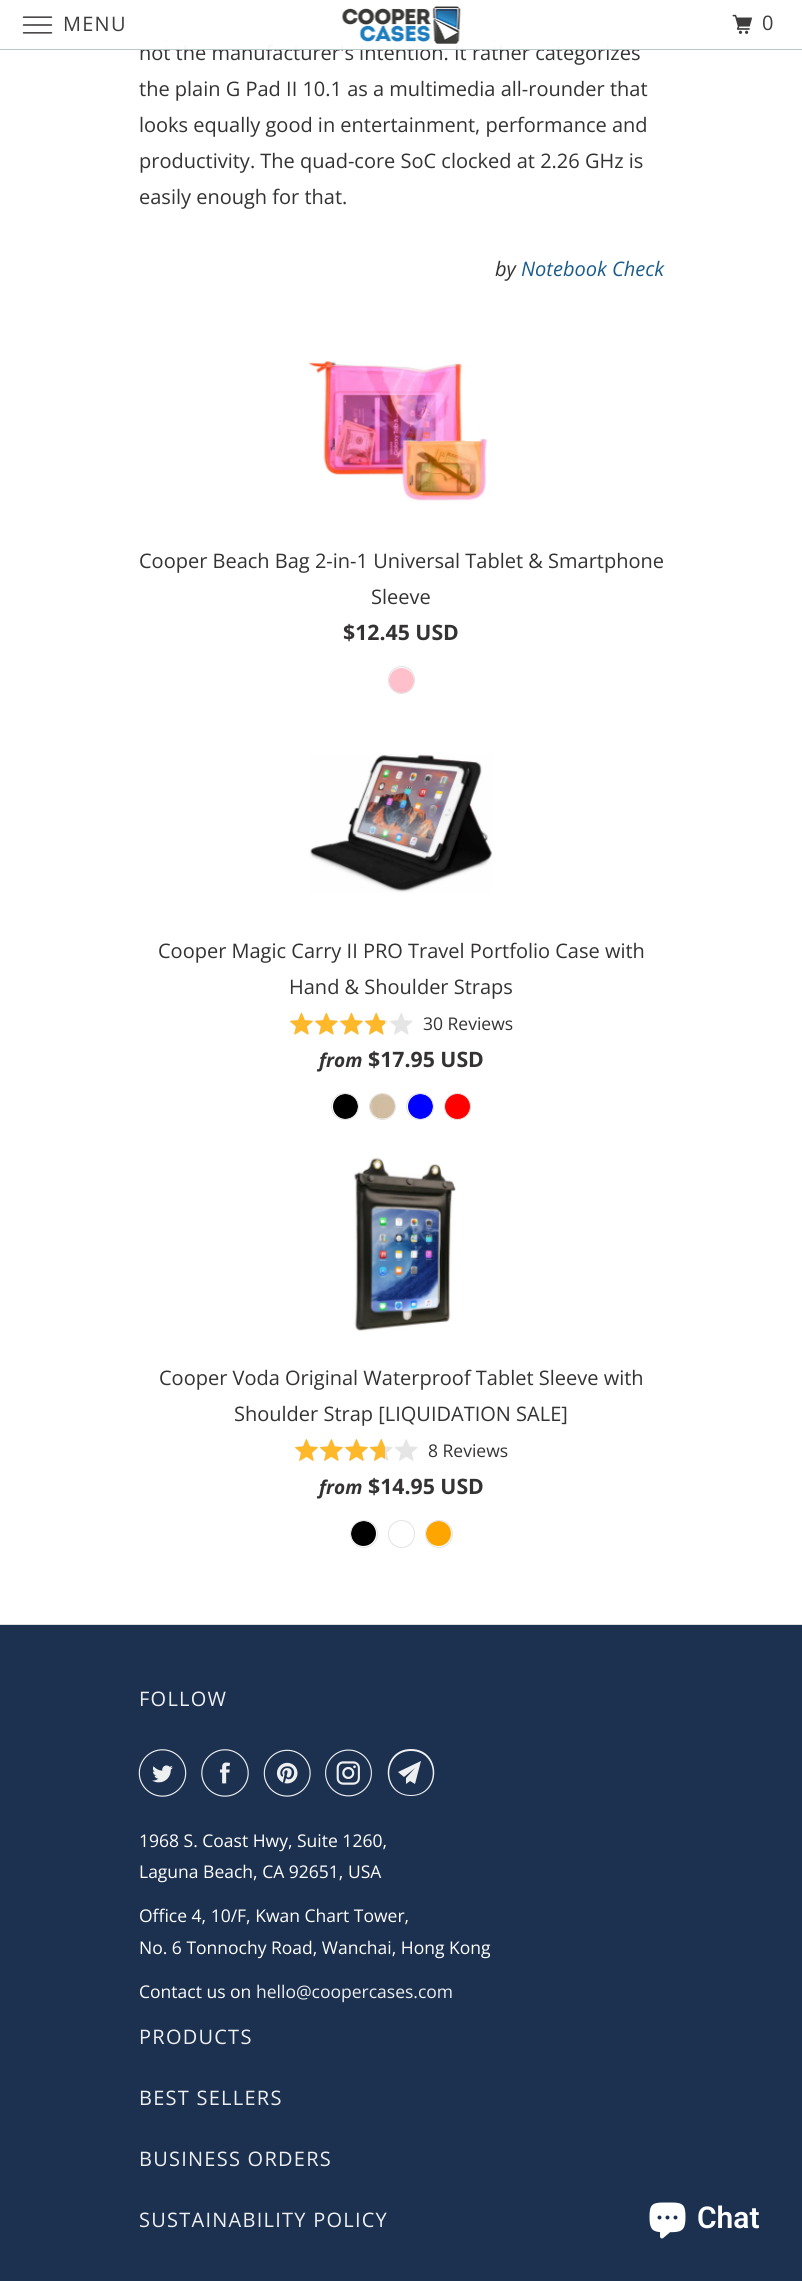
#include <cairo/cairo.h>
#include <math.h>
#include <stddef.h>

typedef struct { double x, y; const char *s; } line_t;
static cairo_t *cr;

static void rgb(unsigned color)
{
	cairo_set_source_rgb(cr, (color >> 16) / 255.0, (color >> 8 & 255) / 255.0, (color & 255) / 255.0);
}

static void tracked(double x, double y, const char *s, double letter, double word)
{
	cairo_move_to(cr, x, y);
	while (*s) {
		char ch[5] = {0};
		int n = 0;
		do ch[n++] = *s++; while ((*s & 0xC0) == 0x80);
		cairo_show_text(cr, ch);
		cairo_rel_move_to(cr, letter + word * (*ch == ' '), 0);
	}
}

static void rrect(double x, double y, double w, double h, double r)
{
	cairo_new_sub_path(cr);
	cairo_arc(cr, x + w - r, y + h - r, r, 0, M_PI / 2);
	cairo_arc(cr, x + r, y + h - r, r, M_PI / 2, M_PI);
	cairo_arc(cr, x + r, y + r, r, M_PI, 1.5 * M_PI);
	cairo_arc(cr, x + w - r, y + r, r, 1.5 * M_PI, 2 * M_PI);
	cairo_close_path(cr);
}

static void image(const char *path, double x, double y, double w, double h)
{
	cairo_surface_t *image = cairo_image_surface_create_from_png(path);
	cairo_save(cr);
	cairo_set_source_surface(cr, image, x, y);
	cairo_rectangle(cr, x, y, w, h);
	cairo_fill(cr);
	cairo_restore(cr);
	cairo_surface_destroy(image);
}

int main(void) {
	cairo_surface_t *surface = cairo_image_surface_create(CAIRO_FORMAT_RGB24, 802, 2281);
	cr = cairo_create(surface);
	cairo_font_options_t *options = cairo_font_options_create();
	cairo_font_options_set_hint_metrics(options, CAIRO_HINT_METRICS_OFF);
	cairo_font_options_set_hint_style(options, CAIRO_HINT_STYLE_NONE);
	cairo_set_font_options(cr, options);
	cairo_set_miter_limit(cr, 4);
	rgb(0xffffff);
	cairo_paint(cr);
	image("img/1.png", 22, 16, 31, 18);
	image("img/2.png", 342, 6, 119, 38);
	image("img/3.png", 732, 14, 21, 20);
	image("img/4.png", 308, 360, 179, 141);
	rgb(0xffc0cb);
	cairo_arc(cr, 401.5, 680.5, 12.5, 0, 2 * M_PI);
	cairo_fill(cr);
	rrect(388.5, 666.5, 26, 27, 13);
	rgb(0xe2e2e2);
	cairo_set_line_width(cr, 1);
	cairo_stroke(cr);
	image("img/5.png", 309, 754, 184, 139);
	image("img/7.png", 290, 1013, 123, 22);
	image("img/6.png", 290, 1012, 95, 23);
	rgb(0x000000);
	cairo_arc(cr, 345.5, 1106.5, 12.5, 0, 2 * M_PI);
	cairo_fill(cr);
	rrect(331.5, 1093.5, 27, 26, 13);
	rgb(0xe2e2e2);
	cairo_stroke(cr);
	rgb(0xf5f5dc);
	cairo_arc(cr, 382.5, 1106.5, 12.5, 0, 2 * M_PI);
	cairo_fill(cr);
	image("img/8.png", 370, 1093, 25, 26);
	cairo_arc(cr, 382.5, 1106.5, 13, 0, 2 * M_PI);
	rgb(0xe2e2e2);
	cairo_stroke(cr);
	rgb(0x0000ff);
	cairo_arc(cr, 420.5, 1106.5, 12.5, 0, 2 * M_PI);
	cairo_fill(cr);
	rrect(406.5, 1093.5, 27, 26, 13);
	rgb(0xe2e2e2);
	cairo_stroke(cr);
	rgb(0xff0000);
	cairo_arc(cr, 457.5, 1106.5, 13, 0, 2 * M_PI);
	cairo_fill_preserve(cr);
	rgb(0xe2e2e2);
	cairo_stroke(cr);
	image("img/9.png", 353, 1157, 103, 174);
	image("img/10.png", 295, 1439, 123, 22);
	image("img/11.png", 295, 1439, 90, 22);
	rgb(0x000000);
	cairo_arc(cr, 363.5, 1533.5, 12.5, 0, 2 * M_PI);
	cairo_fill(cr);
	cairo_arc(cr, 364, 1534, 13.5, 0, 2 * M_PI);
	rgb(0xe2e2e2);
	cairo_stroke(cr);
	rrect(388.5, 1520.5, 26, 27, 13);
	cairo_stroke(cr);
	rgb(0xffa500);
	cairo_arc(cr, 438.5, 1533.5, 12.5, 0, 2 * M_PI);
	cairo_fill(cr);
	cairo_arc(cr, 439, 1534, 13.5, 0, 2 * M_PI);
	rgb(0xe2e2e2);
	cairo_stroke(cr);
	rgb(0x1c3150);
	cairo_rectangle(cr, 0, 1625, 802, 656);
	cairo_fill(cr);
	rgb(0xdddddd);
	cairo_rectangle(cr, 0, 1624, 802, 1);
	cairo_fill(cr);
	image("img/12.png", 138, 1749, 49, 48);
	image("img/13.png", 201, 1749, 48, 48);
	image("img/14.png", 263, 1749, 48, 48);
	image("img/15.png", 325, 1749, 47, 48);
	rgb(0xeeeff0);
	cairo_new_path(cr);
	cairo_move_to(cr, 415, 1784);
	cairo_line_to(cr, 410, 1781);
	cairo_line_to(cr, 406, 1784);
	cairo_line_to(cr, 406, 1778);
	cairo_line_to(cr, 415, 1768);
	cairo_line_to(cr, 404, 1777);
	cairo_line_to(cr, 398, 1772);
	cairo_line_to(cr, 421, 1761);
	cairo_close_path(cr);
	cairo_move_to(cr, 411, 1751);
	cairo_curve_to(cr, 382, 1751, 382, 1795, 411, 1795);
	cairo_curve_to(cr, 440, 1795, 440, 1751, 411, 1751);
	cairo_close_path(cr);
	cairo_move_to(cr, 411, 1796);
	cairo_curve_to(cr, 380, 1796, 380, 1749, 411, 1749);
	cairo_curve_to(cr, 442, 1749, 442, 1796, 411, 1796);
	cairo_close_path(cr);
	cairo_fill(cr);
	image("img/16.png", 649, 2202, 37, 37);
	cairo_select_font_face(cr, "Open Sans", CAIRO_FONT_SLANT_NORMAL, CAIRO_FONT_WEIGHT_NORMAL);
	cairo_set_font_size(cr, 20);
	rgb(0x3e3c3d);
	tracked(63, 31, "MENU", 1.25, 0);
	tracked(762, 30, "0", 1.25, 0);
	rgb(0x343233);
	cairo_move_to(cr, 139, 60);
	cairo_show_text(cr, "not the manufacturer's intention. It rather categorizes");
	cairo_set_source_rgba(cr, 1, 1, 1, 0.95);
	cairo_rectangle(cr, 140, 44, 499, 6);
	cairo_fill(cr);
	cairo_set_source_rgba(cr, 0.722, 0.776, 0.776, 0.95);
	cairo_rectangle(cr, 0, 49, 802, 1);
	cairo_fill(cr);
	rgb(0x343233);
	{
		static const line_t items[] = {
			{139, 96, "the plain G Pad II 10.1 as a multimedia all-rounder that"},
			{139, 132, "looks equally good in entertainment, performance and"},
			{139, 168, "productivity. The quad-core SoC clocked at 2.26 GHz is"},
			{139, 204, "easily enough for that."},
		};
		for (size_t i = 0; i < sizeof items / sizeof *items; i++) {
			cairo_move_to(cr, items[i].x, items[i].y);
			cairo_show_text(cr, items[i].s);
		}
	}
	cairo_select_font_face(cr, "Open Sans", CAIRO_FONT_SLANT_ITALIC, CAIRO_FONT_WEIGHT_NORMAL);
	cairo_move_to(cr, 495, 276);
	cairo_show_text(cr, "by");
	rgb(0x1c5c8c);
	cairo_move_to(cr, 521, 276);
	cairo_show_text(cr, "Notebook Check");
	cairo_select_font_face(cr, "Open Sans", CAIRO_FONT_SLANT_NORMAL, CAIRO_FONT_WEIGHT_NORMAL);
	rgb(0x343233);
	cairo_move_to(cr, 139, 568);
	cairo_show_text(cr, "Cooper Beach Bag 2-in-1 Universal Tablet & Smartphone");
	cairo_move_to(cr, 371, 604);
	cairo_show_text(cr, "Sleeve");
	cairo_select_font_face(cr, "Open Sans", CAIRO_FONT_SLANT_NORMAL, CAIRO_FONT_WEIGHT_BOLD);
	cairo_set_font_size(cr, 21.25);
	cairo_move_to(cr, 343, 640);
	cairo_show_text(cr, "$12.45 USD");
	cairo_select_font_face(cr, "Open Sans", CAIRO_FONT_SLANT_NORMAL, CAIRO_FONT_WEIGHT_NORMAL);
	cairo_set_font_size(cr, 20);
	cairo_move_to(cr, 158, 958);
	cairo_show_text(cr, "Cooper Magic Carry II PRO Travel Portfolio Case with");
	cairo_move_to(cr, 289, 994);
	cairo_show_text(cr, "Hand & Shoulder Straps");
	cairo_set_font_size(cr, 17.5);
	cairo_move_to(cr, 423, 1030);
	cairo_show_text(cr, "30 Reviews");
	cairo_select_font_face(cr, "Open Sans", CAIRO_FONT_SLANT_ITALIC, CAIRO_FONT_WEIGHT_BOLD);
	cairo_set_font_size(cr, 19);
	cairo_move_to(cr, 319, 1067);
	cairo_show_text(cr, "from");
	cairo_select_font_face(cr, "Open Sans", CAIRO_FONT_SLANT_NORMAL, CAIRO_FONT_WEIGHT_BOLD);
	cairo_set_font_size(cr, 21.25);
	cairo_move_to(cr, 368, 1067);
	cairo_show_text(cr, "$17.95 USD");
	cairo_select_font_face(cr, "Open Sans", CAIRO_FONT_SLANT_NORMAL, CAIRO_FONT_WEIGHT_NORMAL);
	cairo_set_font_size(cr, 20);
	cairo_move_to(cr, 159, 1385);
	cairo_show_text(cr, "Cooper Voda Original Waterproof Tablet Sleeve with");
	cairo_move_to(cr, 234, 1421);
	cairo_show_text(cr, "Shoulder Strap [LIQUIDATION SALE]");
	cairo_set_font_size(cr, 17.5);
	cairo_move_to(cr, 428, 1457);
	cairo_show_text(cr, "8 Reviews");
	cairo_select_font_face(cr, "Open Sans", CAIRO_FONT_SLANT_ITALIC, CAIRO_FONT_WEIGHT_BOLD);
	cairo_set_font_size(cr, 19);
	cairo_move_to(cr, 319, 1494);
	cairo_show_text(cr, "from");
	cairo_select_font_face(cr, "Open Sans", CAIRO_FONT_SLANT_NORMAL, CAIRO_FONT_WEIGHT_BOLD);
	cairo_set_font_size(cr, 21.25);
	cairo_move_to(cr, 368, 1494);
	cairo_show_text(cr, "$14.95 USD");
	cairo_select_font_face(cr, "Open Sans", CAIRO_FONT_SLANT_NORMAL, CAIRO_FONT_WEIGHT_NORMAL);
	cairo_set_font_size(cr, 20);
	rgb(0xeeeff0);
	tracked(139, 1706, "FOLLOW", 1.25, 0);
	cairo_set_font_size(cr, 17.5);
	rgb(0xffffff);
	{
		static const line_t items[] = {
			{139, 1847, "1968 S. Coast Hwy, Suite 1260,"},
			{139, 1878, "Laguna Beach, CA 92651, USA"},
			{139, 1922, "Office 4, 10/F, Kwan Chart Tower,"},
			{139, 1954, "No. 6 Tonnochy Road, Wanchai, Hong Kong"},
			{139, 1998, "Contact us on"},
		};
		for (size_t i = 0; i < sizeof items / sizeof *items; i++) {
			cairo_move_to(cr, items[i].x, items[i].y);
			cairo_show_text(cr, items[i].s);
		}
	}
	rgb(0xeeeff0);
	cairo_move_to(cr, 256, 1998);
	cairo_show_text(cr, "hello@coopercases.com");
	cairo_set_font_size(cr, 20);
	{
		static const line_t items[] = {
			{139, 2044, "PRODUCTS"},
			{139, 2105, "BEST SELLERS"},
			{139, 2166, "BUSINESS ORDERS"},
			{139, 2227, "SUSTAINABILITY POLICY"},
		};
		for (size_t i = 0; i < sizeof items / sizeof *items; i++) {
			tracked(items[i].x, items[i].y, items[i].s, 1.25, 0);
		}
	}
	cairo_select_font_face(cr, "Roboto SemiBold", CAIRO_FONT_SLANT_NORMAL, CAIRO_FONT_WEIGHT_NORMAL);
	cairo_set_font_size(cr, 30);
	rgb(0xffffff);
	cairo_move_to(cr, 697, 2228);
	cairo_show_text(cr, "Chat");
	cairo_surface_write_to_png(surface, "page.png");
	cairo_font_options_destroy(options);
	cairo_destroy(cr);
	cairo_surface_destroy(surface);
	return 0;
}
